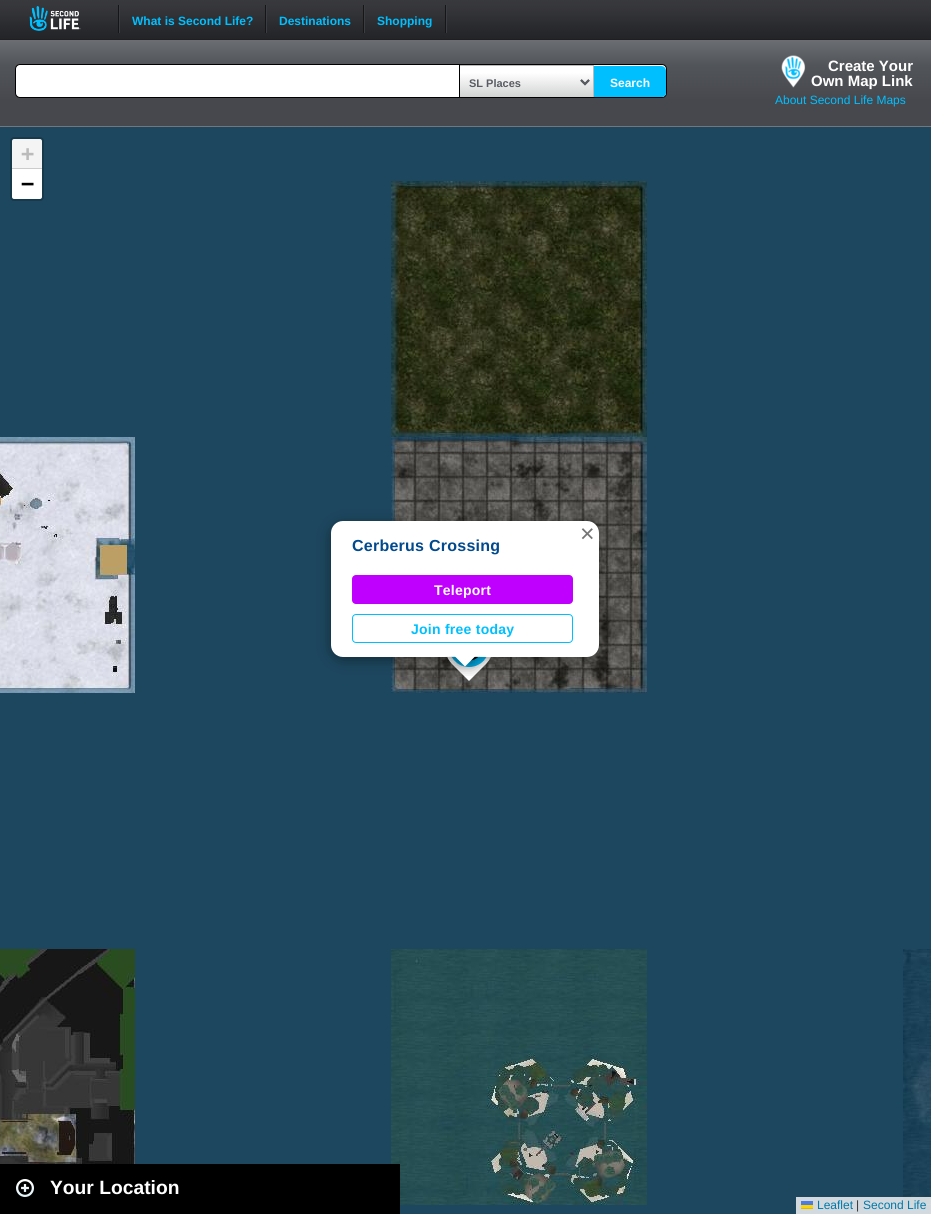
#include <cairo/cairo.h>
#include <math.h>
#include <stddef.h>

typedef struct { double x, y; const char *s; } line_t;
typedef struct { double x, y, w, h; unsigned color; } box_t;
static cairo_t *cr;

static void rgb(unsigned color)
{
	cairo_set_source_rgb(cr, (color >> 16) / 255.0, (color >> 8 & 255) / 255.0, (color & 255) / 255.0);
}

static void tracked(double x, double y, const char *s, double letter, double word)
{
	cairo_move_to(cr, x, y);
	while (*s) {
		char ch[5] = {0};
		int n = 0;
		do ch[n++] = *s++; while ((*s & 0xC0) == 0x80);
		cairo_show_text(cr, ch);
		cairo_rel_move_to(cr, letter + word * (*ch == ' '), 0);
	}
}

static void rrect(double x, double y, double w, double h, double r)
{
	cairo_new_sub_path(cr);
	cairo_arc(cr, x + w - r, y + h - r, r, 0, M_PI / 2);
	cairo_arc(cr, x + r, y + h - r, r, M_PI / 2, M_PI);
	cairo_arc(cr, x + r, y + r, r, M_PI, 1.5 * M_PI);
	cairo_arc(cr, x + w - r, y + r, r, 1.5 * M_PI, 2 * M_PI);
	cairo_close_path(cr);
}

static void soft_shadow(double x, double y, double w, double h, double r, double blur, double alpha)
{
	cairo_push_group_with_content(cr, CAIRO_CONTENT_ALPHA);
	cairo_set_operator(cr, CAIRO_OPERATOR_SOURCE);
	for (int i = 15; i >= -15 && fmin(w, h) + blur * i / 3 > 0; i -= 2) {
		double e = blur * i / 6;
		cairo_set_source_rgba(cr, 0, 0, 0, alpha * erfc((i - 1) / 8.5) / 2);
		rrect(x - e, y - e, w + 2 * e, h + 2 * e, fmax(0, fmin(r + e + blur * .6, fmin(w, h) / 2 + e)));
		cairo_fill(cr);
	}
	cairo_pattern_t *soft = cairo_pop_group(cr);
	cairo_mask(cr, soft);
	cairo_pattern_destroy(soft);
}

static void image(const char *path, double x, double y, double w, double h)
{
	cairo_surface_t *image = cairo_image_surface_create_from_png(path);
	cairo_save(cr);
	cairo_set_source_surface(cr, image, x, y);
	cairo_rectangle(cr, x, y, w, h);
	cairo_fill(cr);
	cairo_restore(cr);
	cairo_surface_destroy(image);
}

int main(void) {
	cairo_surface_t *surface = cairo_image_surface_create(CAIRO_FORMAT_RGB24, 931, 1214);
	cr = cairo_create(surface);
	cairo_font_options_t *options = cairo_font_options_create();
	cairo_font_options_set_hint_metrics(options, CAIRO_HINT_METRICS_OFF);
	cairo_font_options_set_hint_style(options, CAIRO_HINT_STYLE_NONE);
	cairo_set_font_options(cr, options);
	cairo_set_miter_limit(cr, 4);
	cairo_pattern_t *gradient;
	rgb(0x1d475f);
	cairo_paint(cr);
	image("img/1.png", 0, 0, 931, 40);
	image("img/2.png", 29, 6, 52, 25);
	{
		static const box_t items[] = {
			{119, 5, 1, 28, 0x3a3e42},
			{118, 5, 1, 28, 0x161616},
			{266, 5, 1, 28, 0x3a3e42},
			{265, 5, 1, 28, 0x161616},
			{364, 5, 1, 28, 0x3a3e42},
			{363, 5, 1, 28, 0x161616},
			{446, 5, 1, 28, 0x3a3e42},
			{445, 5, 1, 28, 0x161616},
		};
		for (size_t i = 0; i < sizeof items / sizeof *items; i++) {
			rgb(items[i].color);
			cairo_rectangle(cr, items[i].x, items[i].y, items[i].w, items[i].h);
			cairo_fill(cr);
		}
	}
	gradient = cairo_pattern_create_linear(0, 126, 0, 40);
	cairo_pattern_add_color_stop_rgba(gradient, 0.29, 0.278, 0.282, 0.302, 1);
	cairo_pattern_add_color_stop_rgba(gradient, 0.71, 0.318, 0.333, 0.349, 1);
	cairo_pattern_add_color_stop_rgba(gradient, 1, 0.42, 0.431, 0.451, 1);
	cairo_set_source(cr, gradient);
	cairo_pattern_destroy(gradient);
	cairo_rectangle(cr, 0, 40, 931, 86);
	cairo_fill(cr);
	rgb(0x72777e);
	cairo_rectangle(cr, 0, 126, 931, 1);
	cairo_fill(cr);
	rgb(0xffffff);
	rrect(15.5, 64.5, 651, 33, 4.5);
	cairo_fill_preserve(cr);
	rgb(0x000000);
	cairo_set_line_width(cr, 1);
	cairo_stroke(cr);
	image("img/3.png", 460, 66, 133, 31);
	{
		static const box_t items[] = {
			{459, 65, 135, 1, 0xbbbbbb},
			{593, 65, 1, 32, 0xbbbbbb},
			{459, 65, 1, 32, 0x000000},
		};
		for (size_t i = 0; i < sizeof items / sizeof *items; i++) {
			rgb(items[i].color);
			cairo_rectangle(cr, items[i].x, items[i].y, items[i].w, items[i].h);
			cairo_fill(cr);
		}
	}
	cairo_new_path(cr);
	cairo_move_to(cr, 581, 80);
	cairo_line_to(cr, 585, 84);
	cairo_line_to(cr, 589, 80);
	rgb(0x595c62);
	cairo_set_line_width(cr, 2);
	cairo_stroke(cr);
	cairo_save(cr);
	rrect(16, 65, 650, 32, 4);
	cairo_clip(cr);
	rgb(0x00bfff);
	cairo_new_path(cr);
	cairo_move_to(cr, 594, 66);
	cairo_line_to(cr, 661, 66);
	cairo_curve_to(cr, 664, 66, 666, 68, 666, 71);
	cairo_line_to(cr, 666, 95);
	cairo_curve_to(cr, 666, 98, 664, 100, 661, 100);
	cairo_line_to(cr, 594, 100);
	cairo_close_path(cr);
	cairo_fill(cr);
	cairo_restore(cr);
	image("img/4.png", 781, 55, 25, 33);
	rrect(11, 138, 32, 62, 3);
	rgb(0x17394c);
	cairo_stroke(cr);
	rgb(0xf4f4f4);
	cairo_new_path(cr);
	cairo_move_to(cr, 14, 139);
	cairo_line_to(cr, 40, 139);
	cairo_curve_to(cr, 41, 139, 42, 140, 42, 141);
	cairo_line_to(cr, 42, 169);
	cairo_line_to(cr, 12, 169);
	cairo_line_to(cr, 12, 141);
	cairo_curve_to(cr, 12, 140, 13, 139, 14, 139);
	cairo_close_path(cr);
	cairo_fill(cr);
	rgb(0xcccccc);
	cairo_rectangle(cr, 12, 168, 30, 1);
	cairo_fill(cr);
	rgb(0xffffff);
	cairo_new_path(cr);
	cairo_move_to(cr, 12, 169);
	cairo_line_to(cr, 42, 169);
	cairo_line_to(cr, 42, 197);
	cairo_curve_to(cr, 42, 198, 41, 199, 40, 199);
	cairo_line_to(cr, 14, 199);
	cairo_curve_to(cr, 13, 199, 12, 198, 12, 197);
	cairo_close_path(cr);
	cairo_fill(cr);
	image("img/10.png", 903, 949, 28, 256);
	cairo_set_source_rgba(cr, 1, 1, 1, 0.8);
	cairo_rectangle(cr, 796, 1197, 135, 17);
	cairo_fill(cr);
	rgb(0x4c7be1);
	cairo_rectangle(cr, 801, 1201, 12, 4);
	cairo_fill(cr);
	rgb(0xffd500);
	cairo_rectangle(cr, 801, 1205, 12, 3);
	cairo_fill(cr);
	rgb(0xe0bc00);
	cairo_rectangle(cr, 801, 1208, 12, 1);
	cairo_fill(cr);
	image("img/5.png", 391, 181, 256, 256);
	image("img/6.png", 0, 437, 135, 256);
	image("img/7.png", 391, 437, 256, 256);
	image("img/8.png", 0, 949, 135, 215);
	image("img/9.png", 391, 949, 256, 256);
	image("img/11.png", 447, 657, 44, 24);
	rgb(0x000000);
	soft_shadow(331, 524, 268, 136, 12, 7, 0.4);
	rgb(0xffffff);
	rrect(331, 521, 268, 136, 12);
	cairo_fill(cr);
	rgb(0xbf00ff);
	rrect(352, 575, 221, 29, 4);
	cairo_fill(cr);
	rrect(352.5, 614.5, 220, 28, 3.5);
	rgb(0x00bfff);
	cairo_set_line_width(cr, 1);
	cairo_stroke(cr);
	cairo_save(cr);
	cairo_rectangle(cr, 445, 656, 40, 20);
	cairo_clip(cr);
	rgb(0x000000);
	soft_shadow(457, 649, 17, 17, 0, 7, 0.4);
	cairo_restore(cr);
	cairo_save(cr);
	cairo_rectangle(cr, 445, 656, 40, 20);
	cairo_clip(cr);
	rgb(0xffffff);
	cairo_new_path(cr);
	cairo_move_to(cr, 465, 642.5);
	cairo_line_to(cr, 477, 654.5);
	cairo_line_to(cr, 465, 666.5);
	cairo_line_to(cr, 453, 654.5);
	cairo_close_path(cr);
	cairo_fill(cr);
	cairo_restore(cr);
	rgb(0x000000);
	cairo_rectangle(cr, 0, 1164, 400, 50);
	cairo_fill(cr);
	image("img/12.png", 16, 1179, 18, 18);
	cairo_select_font_face(cr, "Liberation Sans", CAIRO_FONT_SLANT_NORMAL, CAIRO_FONT_WEIGHT_BOLD);
	cairo_set_font_size(cr, 12);
	rgb(0x00bfff);
	{
		static const line_t items[] = {
			{132, 25, "What is Second Life?"},
			{279, 25, "Destinations"},
			{377, 25, "Shopping"},
		};
		for (size_t i = 0; i < sizeof items / sizeof *items; i++) {
			cairo_move_to(cr, items[i].x, items[i].y);
			cairo_show_text(cr, items[i].s);
		}
	}
	cairo_set_font_size(cr, 11);
	rgb(0x595c62);
	cairo_move_to(cr, 469, 87);
	cairo_show_text(cr, "SL Places");
	cairo_set_font_size(cr, 12);
	rgb(0xffffff);
	cairo_move_to(cr, 610, 87);
	cairo_show_text(cr, "Search");
	cairo_set_font_size(cr, 15);
	cairo_move_to(cr, 828, 71);
	cairo_show_text(cr, "Create Your");
	cairo_move_to(cr, 811, 86);
	cairo_show_text(cr, "Own Map Link");
	cairo_select_font_face(cr, "Liberation Sans", CAIRO_FONT_SLANT_NORMAL, CAIRO_FONT_WEIGHT_NORMAL);
	cairo_set_font_size(cr, 12);
	rgb(0x00bfff);
	cairo_move_to(cr, 775, 104);
	cairo_show_text(cr, "About Second Life Maps");
	cairo_select_font_face(cr, "DejaVu Sans Mono", CAIRO_FONT_SLANT_NORMAL, CAIRO_FONT_WEIGHT_BOLD);
	cairo_set_font_size(cr, 22);
	rgb(0xbbbbbb);
	cairo_move_to(cr, 21, 161);
	cairo_show_text(cr, "+");
	rgb(0x000000);
	cairo_move_to(cr, 21, 191);
	cairo_show_text(cr, "−");
	cairo_select_font_face(cr, "Liberation Sans", CAIRO_FONT_SLANT_NORMAL, CAIRO_FONT_WEIGHT_NORMAL);
	cairo_set_font_size(cr, 12);
	rgb(0x0078a8);
	cairo_move_to(cr, 817, 1209);
	cairo_show_text(cr, "Leaflet");
	rgb(0x333333);
	cairo_move_to(cr, 856, 1209);
	cairo_show_text(cr, "|");
	rgb(0x0078a8);
	cairo_move_to(cr, 863, 1209);
	cairo_show_text(cr, "Second Life");
	cairo_set_font_size(cr, 25);
	rgb(0x757575);
	cairo_move_to(cr, 580, 542);
	cairo_show_text(cr, "×");
	cairo_select_font_face(cr, "Liberation Sans", CAIRO_FONT_SLANT_NORMAL, CAIRO_FONT_WEIGHT_BOLD);
	cairo_set_font_size(cr, 16);
	rgb(0x014a8e);
	tracked(352, 551, "Cerberus Crossing", 0.25, 0);
	cairo_set_font_size(cr, 14);
	rgb(0xffffff);
	tracked(434, 595, "Teleport", 0.25, 0);
	rgb(0x00bfff);
	tracked(411, 634, "Join free today", 0.25, 0);
	cairo_set_font_size(cr, 19.25);
	rgb(0xffffff);
	cairo_move_to(cr, 50, 1194);
	cairo_show_text(cr, "Your Location");
	cairo_surface_write_to_png(surface, "page.png");
	cairo_font_options_destroy(options);
	cairo_destroy(cr);
	cairo_surface_destroy(surface);
	return 0;
}
